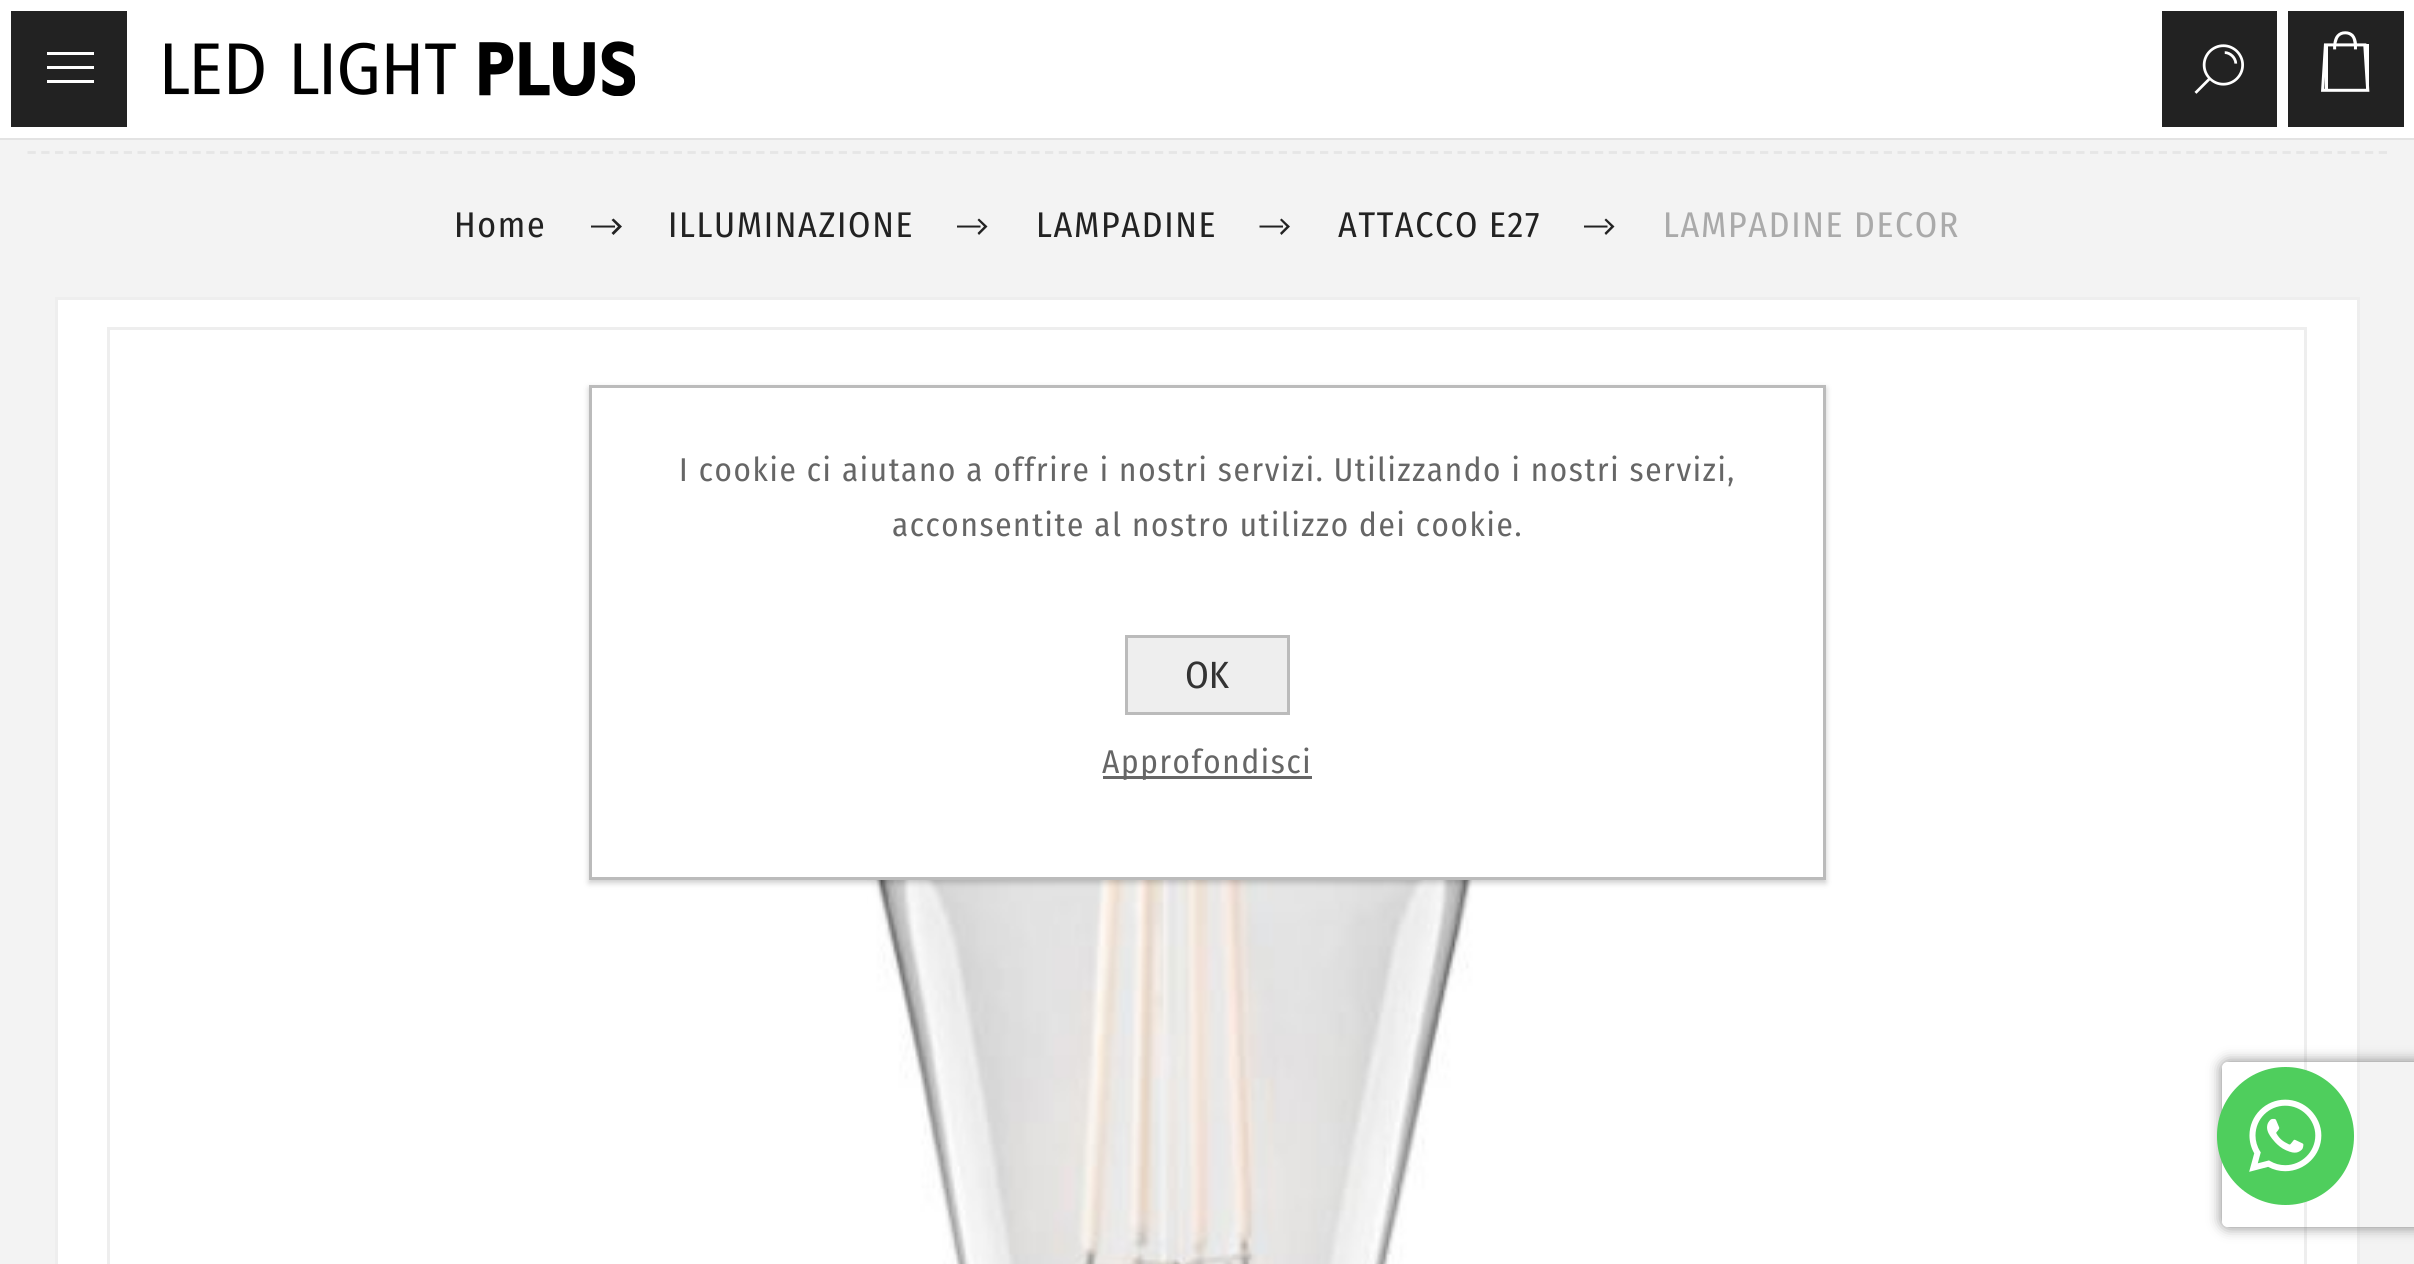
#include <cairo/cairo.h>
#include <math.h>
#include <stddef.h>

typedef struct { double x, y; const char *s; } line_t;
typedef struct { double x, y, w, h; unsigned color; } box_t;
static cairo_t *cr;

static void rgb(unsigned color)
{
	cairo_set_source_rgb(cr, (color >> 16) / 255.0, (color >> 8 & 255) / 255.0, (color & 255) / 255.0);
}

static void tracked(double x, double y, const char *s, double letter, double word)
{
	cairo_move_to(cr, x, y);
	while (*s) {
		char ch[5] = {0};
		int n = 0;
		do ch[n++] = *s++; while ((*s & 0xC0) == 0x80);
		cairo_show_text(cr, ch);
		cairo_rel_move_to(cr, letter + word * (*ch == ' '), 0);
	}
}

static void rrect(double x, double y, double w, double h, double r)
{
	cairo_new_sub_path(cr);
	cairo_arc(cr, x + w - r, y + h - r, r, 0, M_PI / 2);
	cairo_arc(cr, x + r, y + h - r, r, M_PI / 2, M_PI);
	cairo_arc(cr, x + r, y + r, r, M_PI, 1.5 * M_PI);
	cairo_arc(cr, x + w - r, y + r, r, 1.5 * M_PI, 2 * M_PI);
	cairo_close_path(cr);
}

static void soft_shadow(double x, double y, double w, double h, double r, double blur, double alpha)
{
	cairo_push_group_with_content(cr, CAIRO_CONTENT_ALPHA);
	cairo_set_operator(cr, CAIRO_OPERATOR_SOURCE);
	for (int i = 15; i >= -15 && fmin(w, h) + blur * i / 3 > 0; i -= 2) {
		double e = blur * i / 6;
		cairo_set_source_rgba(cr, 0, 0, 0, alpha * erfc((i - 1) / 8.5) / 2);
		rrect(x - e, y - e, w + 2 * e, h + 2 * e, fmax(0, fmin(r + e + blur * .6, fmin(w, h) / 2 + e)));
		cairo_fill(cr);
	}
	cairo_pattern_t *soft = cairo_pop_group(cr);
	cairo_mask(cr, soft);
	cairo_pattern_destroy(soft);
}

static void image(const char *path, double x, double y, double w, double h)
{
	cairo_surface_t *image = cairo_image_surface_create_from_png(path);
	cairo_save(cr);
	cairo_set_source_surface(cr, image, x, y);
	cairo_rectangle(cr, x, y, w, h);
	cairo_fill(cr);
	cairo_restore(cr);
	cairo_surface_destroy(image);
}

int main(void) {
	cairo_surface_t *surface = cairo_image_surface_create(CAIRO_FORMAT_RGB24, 2414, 1264);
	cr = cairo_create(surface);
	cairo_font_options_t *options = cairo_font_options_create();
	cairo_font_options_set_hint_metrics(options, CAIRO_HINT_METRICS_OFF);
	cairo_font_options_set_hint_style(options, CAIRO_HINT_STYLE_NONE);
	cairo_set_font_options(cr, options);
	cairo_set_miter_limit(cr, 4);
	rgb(0xf3f3f3);
	cairo_paint(cr);
	rgb(0xe3e3e3);
	cairo_new_path(cr);
	cairo_move_to(cr, 0, 138);
	cairo_line_to(cr, 0, 140);
	cairo_line_to(cr, 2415, 140);
	cairo_line_to(cr, 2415, 3);
	cairo_line_to(cr, 2414, 3);
	cairo_line_to(cr, 2414, 138);
	cairo_close_path(cr);
	cairo_fill(cr);
	rgb(0xffffff);
	cairo_rectangle(cr, 138, 0, 2139, 138);
	cairo_fill(cr);
	image("img/1.png", 165, 41, 470, 55);
	rgb(0x222222);
	cairo_rectangle(cr, 2162, 11, 115, 116);
	cairo_fill(cr);
	image("img/2.png", 2194, 44, 50, 50);
	cairo_rectangle(cr, 5.5, 5.5, 127, 127);
	cairo_fill_preserve(cr);
	rgb(0xffffff);
	cairo_set_line_width(cr, 11);
	cairo_stroke(cr);
	{
		static const box_t items[] = {
			{47, 52, 47, 3, 0xffffff},
			{47, 66, 47, 3, 0xffffff},
			{47, 80, 47, 3, 0xffffff},
		};
		for (size_t i = 0; i < sizeof items / sizeof *items; i++) {
			rgb(items[i].color);
			cairo_rectangle(cr, items[i].x, items[i].y, items[i].w, items[i].h);
			cairo_fill(cr);
		}
	}
	rgb(0x222222);
	cairo_rectangle(cr, 2282.5, 5.5, 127, 127);
	cairo_fill_preserve(cr);
	rgb(0xffffff);
	cairo_stroke(cr);
	cairo_rectangle(cr, 2325, 44, 3, 47);
	cairo_fill(cr);
	cairo_rectangle(cr, 2366, 44, 3, 47);
	cairo_fill(cr);
	image("img/3.png", 2321, 31, 49, 61);
	cairo_new_path(cr);
	cairo_move_to(cr, 27.5, 152.5);
	cairo_line_to(cr, 2387, 152.5);
	rgb(0xe6e6e6);
	cairo_set_line_width(cr, 2.8);
	cairo_set_dash(cr, (double[]){8.25, 5.5}, 2, 0);
	cairo_stroke(cr);
	rgb(0x222222);
	cairo_new_path(cr);
	cairo_move_to(cr, 591, 225.5);
	cairo_line_to(cr, 615, 225.5);
	cairo_line_to(cr, 615, 227.5);
	cairo_line_to(cr, 591, 227.5);
	cairo_close_path(cr);
	cairo_move_to(cr, 613.5, 218.5);
	cairo_line_to(cr, 611.5, 220);
	cairo_line_to(cr, 618, 226.5);
	cairo_line_to(cr, 611.5, 233);
	cairo_line_to(cr, 613.5, 235);
	cairo_line_to(cr, 622, 226.5);
	cairo_close_path(cr);
	cairo_fill(cr);
	cairo_new_path(cr);
	cairo_move_to(cr, 957, 225.5);
	cairo_line_to(cr, 980.5, 225.5);
	cairo_line_to(cr, 980.5, 227.5);
	cairo_line_to(cr, 957, 227.5);
	cairo_close_path(cr);
	cairo_move_to(cr, 979, 218.5);
	cairo_line_to(cr, 977.5, 220);
	cairo_line_to(cr, 984, 226.5);
	cairo_line_to(cr, 977.5, 233);
	cairo_line_to(cr, 979, 235);
	cairo_line_to(cr, 987.5, 226.5);
	cairo_close_path(cr);
	cairo_fill(cr);
	cairo_new_path(cr);
	cairo_move_to(cr, 1259.5, 225.5);
	cairo_line_to(cr, 1283, 225.5);
	cairo_line_to(cr, 1283, 227.5);
	cairo_line_to(cr, 1259.5, 227.5);
	cairo_close_path(cr);
	cairo_move_to(cr, 1281.5, 218.5);
	cairo_line_to(cr, 1280, 220);
	cairo_line_to(cr, 1286.5, 226.5);
	cairo_line_to(cr, 1280, 233);
	cairo_line_to(cr, 1281.5, 235);
	cairo_line_to(cr, 1290, 226.5);
	cairo_close_path(cr);
	cairo_fill(cr);
	cairo_new_path(cr);
	cairo_move_to(cr, 1584, 225.5);
	cairo_line_to(cr, 1607.5, 225.5);
	cairo_line_to(cr, 1607.5, 227.5);
	cairo_line_to(cr, 1584, 227.5);
	cairo_close_path(cr);
	cairo_move_to(cr, 1606, 218.5);
	cairo_line_to(cr, 1604.5, 220);
	cairo_line_to(cr, 1611, 226.5);
	cairo_line_to(cr, 1604.5, 233);
	cairo_line_to(cr, 1606, 235);
	cairo_line_to(cr, 1614.5, 226.5);
	cairo_close_path(cr);
	cairo_fill(cr);
	rgb(0xffffff);
	cairo_rectangle(cr, 56.5, 298.5, 2302, 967);
	cairo_fill_preserve(cr);
	rgb(0xeeeeee);
	cairo_set_line_width(cr, 3);
	cairo_set_dash(cr, NULL, 0, 0);
	cairo_stroke(cr);
	cairo_rectangle(cr, 108.5, 328.5, 2197, 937);
	cairo_stroke(cr);
	image("img/4.png", 867, 880, 615, 384);
	rgb(0x000000);
	soft_shadow(589, 388, 1237, 495, 0, 3, 0.2);
	rgb(0xffffff);
	cairo_rectangle(cr, 590.5, 386.5, 1234, 492);
	cairo_fill_preserve(cr);
	rgb(0xbbbbbb);
	cairo_stroke(cr);
	rgb(0xeeeeee);
	cairo_rectangle(cr, 1126.5, 636.5, 162, 77);
	cairo_fill_preserve(cr);
	rgb(0xbbbbbb);
	cairo_stroke(cr);
	rgb(0x666666);
	cairo_rectangle(cr, 1103, 776, 209, 3);
	cairo_fill(cr);
	cairo_save(cr);
	cairo_set_fill_rule(cr, CAIRO_FILL_RULE_EVEN_ODD);
	cairo_new_path(cr);
	cairo_move_to(cr, 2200, 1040);
	cairo_line_to(cr, 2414, 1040);
	cairo_line_to(cr, 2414, 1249);
	cairo_line_to(cr, 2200, 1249);
	cairo_close_path(cr);
	cairo_move_to(cr, 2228, 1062);
	cairo_line_to(cr, 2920, 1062);
	cairo_curve_to(cr, 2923.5, 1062, 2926, 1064.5, 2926, 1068);
	cairo_line_to(cr, 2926, 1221);
	cairo_curve_to(cr, 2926, 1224.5, 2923.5, 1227, 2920, 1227);
	cairo_line_to(cr, 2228, 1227);
	cairo_curve_to(cr, 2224.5, 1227, 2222, 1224.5, 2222, 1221);
	cairo_line_to(cr, 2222, 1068);
	cairo_curve_to(cr, 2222, 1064.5, 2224.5, 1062, 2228, 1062);
	cairo_close_path(cr);
	cairo_clip(cr);
	rgb(0x808080);
	soft_shadow(2222, 1062, 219, 165, 6, 7, 1);
	cairo_restore(cr);
	rgb(0x4fce5d);
	rrect(2217, 1067, 137, 138, 68.5);
	cairo_fill(cr);
	image("img/5.png", 2249, 1099, 73, 73);
	cairo_select_font_face(cr, "Fira Sans Condensed", CAIRO_FONT_SLANT_NORMAL, CAIRO_FONT_WEIGHT_NORMAL);
	cairo_set_font_size(cr, 35.75);
	rgb(0x222222);
	{
		static const line_t items[] = {
			{454, 237, "Home"},
			{668, 237, "ILLUMINAZIONE"},
			{1036, 237, "LAMPADINE"},
			{1338, 237, "ATTACCO E27"},
		};
		for (size_t i = 0; i < sizeof items / sizeof *items; i++) {
			tracked(items[i].x, items[i].y, items[i].s, 1.65, 0);
		}
	}
	rgb(0xaaaaaa);
	tracked(1663, 237, "LAMPADINE DECOR", 1.65, 0);
	cairo_set_font_size(cr, 33);
	rgb(0x666666);
	tracked(679, 481, "I cookie ci aiutano a offrire i nostri servizi. Utilizzando i nostri servizi,", 1.65, 0);
	tracked(892, 536, "acconsentite al nostro utilizzo dei cookie.", 1.65, 0);
	cairo_set_font_size(cr, 38);
	rgb(0x333333);
	cairo_move_to(cr, 1185, 688);
	cairo_show_text(cr, "OK");
	cairo_set_font_size(cr, 33);
	rgb(0x666666);
	tracked(1102, 773, "Approfondisci", 1.65, 0);
	cairo_surface_write_to_png(surface, "page.png");
	cairo_font_options_destroy(options);
	cairo_destroy(cr);
	cairo_surface_destroy(surface);
	return 0;
}
